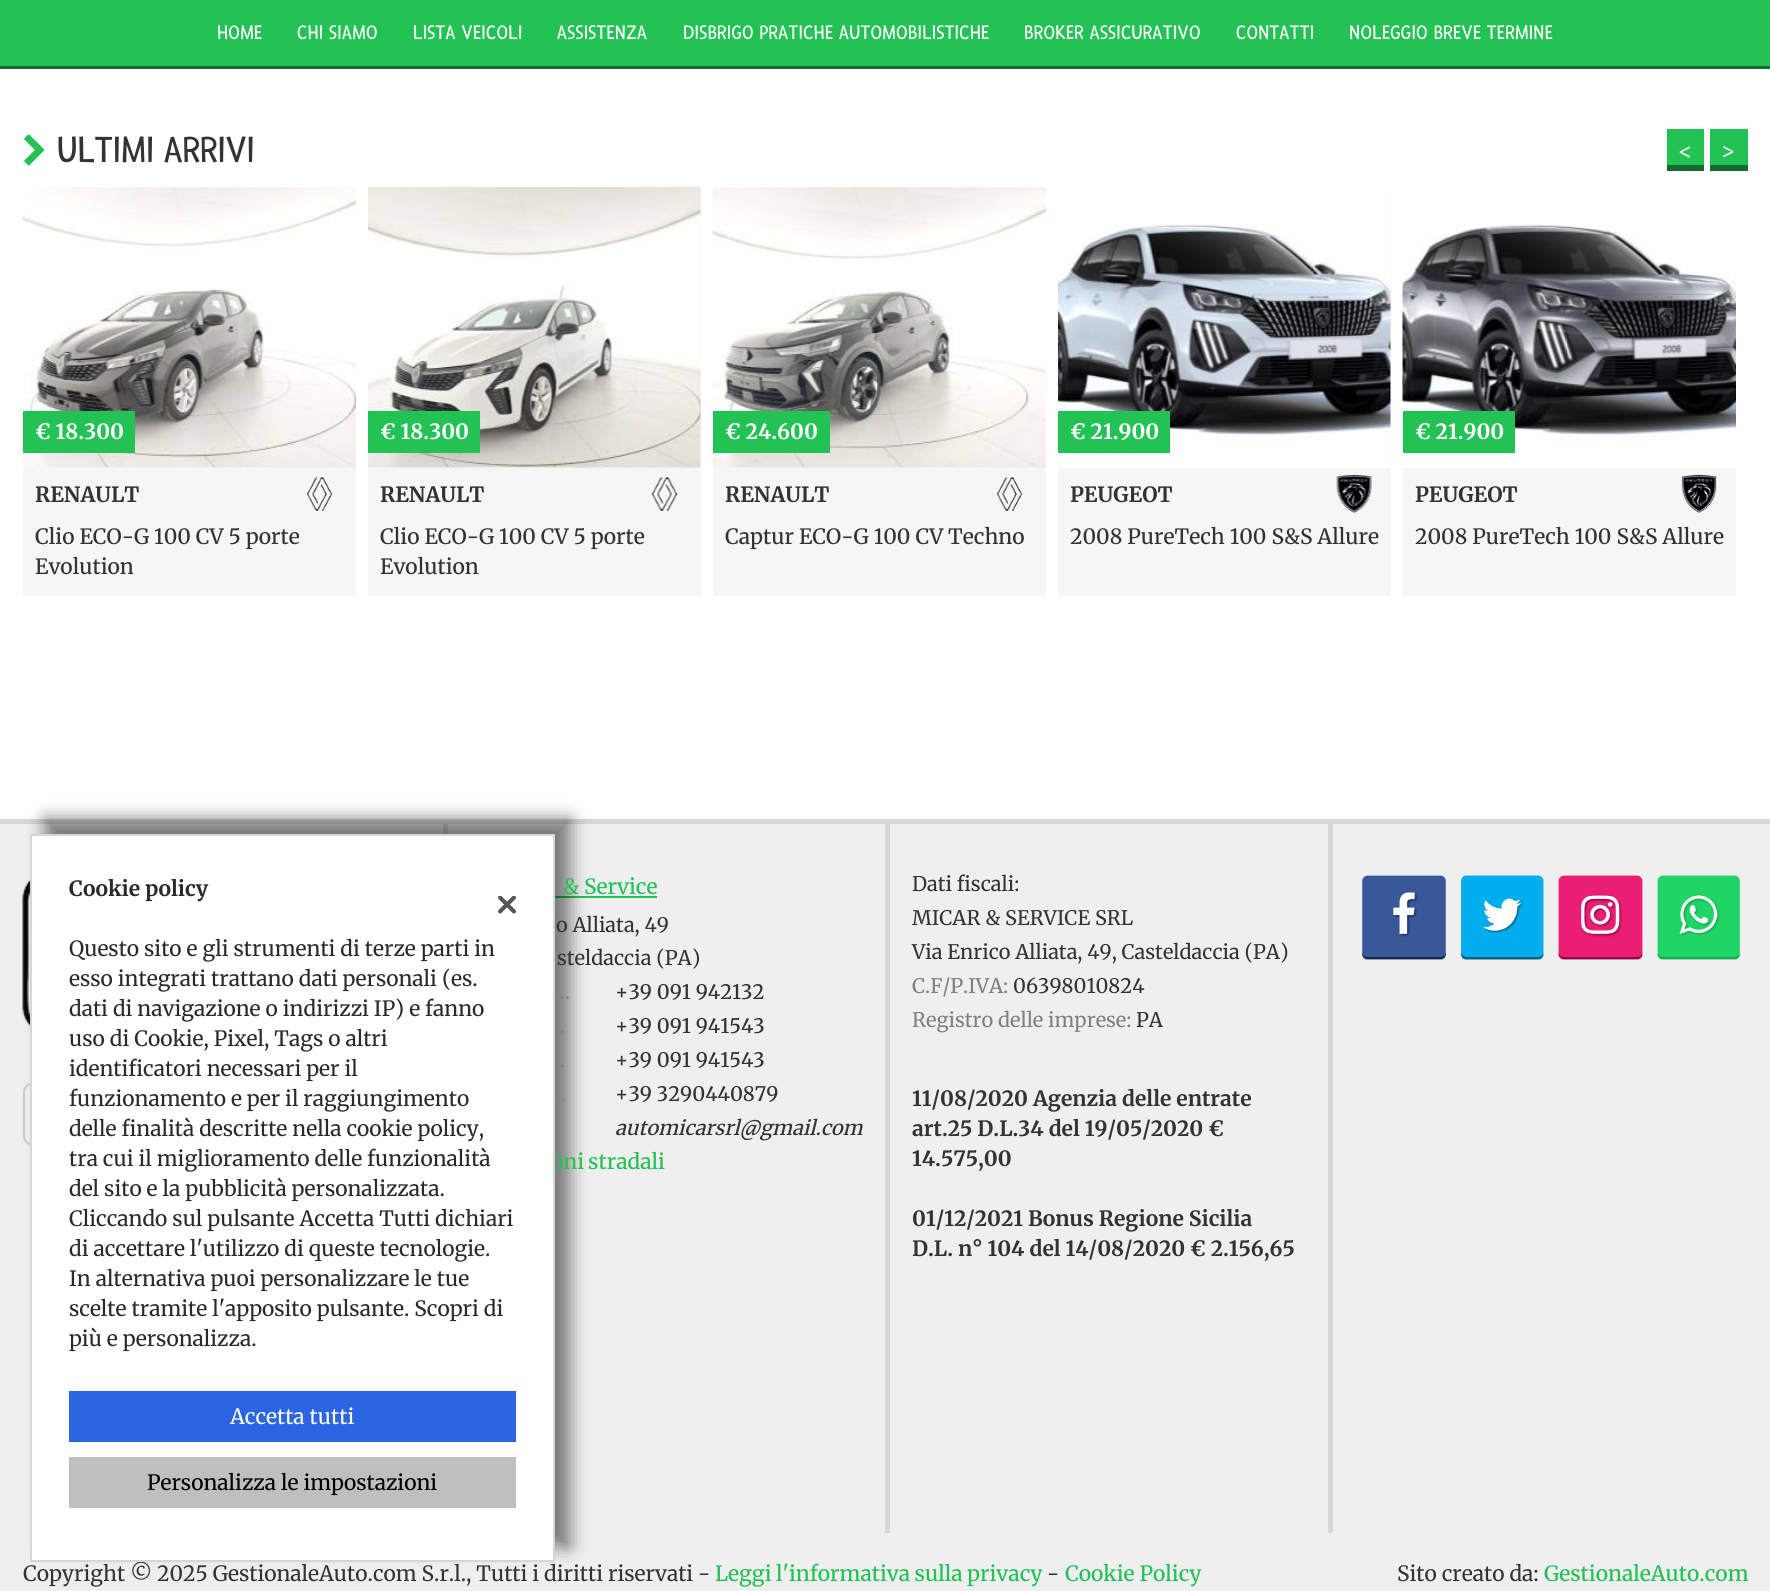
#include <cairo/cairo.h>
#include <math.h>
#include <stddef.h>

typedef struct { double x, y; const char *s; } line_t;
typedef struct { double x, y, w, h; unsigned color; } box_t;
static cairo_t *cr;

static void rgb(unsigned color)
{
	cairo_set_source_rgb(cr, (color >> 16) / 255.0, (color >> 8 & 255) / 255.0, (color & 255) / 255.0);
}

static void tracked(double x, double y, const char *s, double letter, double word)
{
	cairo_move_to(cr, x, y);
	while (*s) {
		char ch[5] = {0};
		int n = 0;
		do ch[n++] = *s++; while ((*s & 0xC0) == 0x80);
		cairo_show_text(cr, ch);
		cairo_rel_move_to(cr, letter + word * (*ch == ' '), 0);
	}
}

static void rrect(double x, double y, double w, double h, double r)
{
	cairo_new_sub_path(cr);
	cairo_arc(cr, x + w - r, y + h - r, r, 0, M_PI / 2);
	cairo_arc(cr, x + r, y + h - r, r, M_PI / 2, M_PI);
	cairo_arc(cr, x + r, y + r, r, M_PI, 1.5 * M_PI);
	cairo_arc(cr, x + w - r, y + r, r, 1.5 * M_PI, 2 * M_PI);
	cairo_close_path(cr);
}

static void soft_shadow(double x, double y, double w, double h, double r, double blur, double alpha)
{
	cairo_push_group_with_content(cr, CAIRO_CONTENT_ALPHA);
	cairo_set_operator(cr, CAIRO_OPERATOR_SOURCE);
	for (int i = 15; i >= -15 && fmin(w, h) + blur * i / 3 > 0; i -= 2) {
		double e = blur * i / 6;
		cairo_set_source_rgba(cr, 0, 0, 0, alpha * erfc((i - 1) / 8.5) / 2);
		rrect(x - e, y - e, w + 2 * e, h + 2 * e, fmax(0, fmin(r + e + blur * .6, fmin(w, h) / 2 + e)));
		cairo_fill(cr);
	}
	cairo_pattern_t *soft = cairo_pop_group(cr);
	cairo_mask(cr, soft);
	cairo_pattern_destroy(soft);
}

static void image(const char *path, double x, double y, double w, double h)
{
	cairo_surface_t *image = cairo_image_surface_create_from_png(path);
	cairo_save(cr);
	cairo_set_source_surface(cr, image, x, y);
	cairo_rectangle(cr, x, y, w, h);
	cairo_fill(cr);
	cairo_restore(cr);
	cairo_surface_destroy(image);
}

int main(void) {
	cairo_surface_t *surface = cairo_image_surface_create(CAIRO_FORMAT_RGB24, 1770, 1591);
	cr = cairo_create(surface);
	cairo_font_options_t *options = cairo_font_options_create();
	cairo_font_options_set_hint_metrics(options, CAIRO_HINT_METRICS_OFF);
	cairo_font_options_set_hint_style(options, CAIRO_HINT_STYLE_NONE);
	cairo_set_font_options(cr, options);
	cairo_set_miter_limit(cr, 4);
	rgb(0xffffff);
	cairo_paint(cr);
	rgb(0x136c2f);
	cairo_rectangle(cr, 0, 66, 1770, 3);
	cairo_fill(cr);
	rgb(0x23c255);
	cairo_rectangle(cr, 0, 0, 1770, 66);
	cairo_fill(cr);
	image("img/1.png", 24, 134, 21, 32);
	{
		static const box_t items[] = {
			{1667, 129, 37, 36, 0x23c255},
			{1667, 165, 37, 6, 0x136c2f},
			{1710, 129, 38, 36, 0x23c255},
			{1710, 165, 38, 6, 0x136c2f},
			{23, 467, 333, 129, 0xf6f6f6},
		};
		for (size_t i = 0; i < sizeof items / sizeof *items; i++) {
			rgb(items[i].color);
			cairo_rectangle(cr, items[i].x, items[i].y, items[i].w, items[i].h);
			cairo_fill(cr);
		}
	}
	image("img/2.png", 23, 187, 333, 281);
	rgb(0x23c255);
	cairo_rectangle(cr, 23, 411, 112, 42);
	cairo_fill(cr);
	image("img/3.png", 306, 477, 27, 35);
	rgb(0xf6f6f6);
	cairo_rectangle(cr, 368, 188, 333, 408);
	cairo_fill(cr);
	image("img/4.png", 368, 187, 333, 281);
	rgb(0x23c255);
	cairo_rectangle(cr, 368, 411, 112, 42);
	cairo_fill(cr);
	image("img/5.png", 651, 477, 27, 35);
	rgb(0xf6f6f6);
	cairo_rectangle(cr, 713, 467, 333, 129);
	cairo_fill(cr);
	image("img/6.png", 712, 187, 334, 281);
	rgb(0x23c255);
	cairo_rectangle(cr, 713, 411, 117, 42);
	cairo_fill(cr);
	image("img/3.png", 996, 477, 27, 35);
	rgb(0xf6f6f6);
	cairo_rectangle(cr, 1058, 188, 333, 408);
	cairo_fill(cr);
	image("img/7.png", 1058, 188, 333, 280);
	rgb(0x23c255);
	cairo_rectangle(cr, 1058, 411, 112, 42);
	cairo_fill(cr);
	image("img/8.png", 1336, 475, 36, 38);
	rgb(0xf6f6f6);
	cairo_rectangle(cr, 1403, 467, 333, 129);
	cairo_fill(cr);
	image("img/9.png", 1402, 188, 334, 280);
	rgb(0x23c255);
	cairo_rectangle(cr, 1403, 411, 112, 42);
	cairo_fill(cr);
	image("img/10.png", 1681, 474, 36, 39);
	rgb(0xefefef);
	cairo_rectangle(cr, 0, 824, 1770, 767);
	cairo_fill(cr);
	rgb(0xd6d6d6);
	cairo_rectangle(cr, 0, 819, 1770, 5);
	cairo_fill(cr);
	image("img/11.png", 22, 878, 8, 149);
	cairo_save(cr);
	cairo_set_fill_rule(cr, CAIRO_FILL_RULE_EVEN_ODD);
	cairo_new_path(cr);
	cairo_move_to(cr, 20, 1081);
	cairo_line_to(cr, 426, 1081);
	cairo_line_to(cr, 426, 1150);
	cairo_line_to(cr, 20, 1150);
	cairo_close_path(cr);
	cairo_move_to(cr, 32, 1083);
	cairo_line_to(cr, 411, 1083);
	cairo_curve_to(cr, 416, 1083, 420, 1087, 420, 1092);
	cairo_line_to(cr, 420, 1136);
	cairo_curve_to(cr, 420, 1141, 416, 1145, 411, 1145);
	cairo_line_to(cr, 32, 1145);
	cairo_curve_to(cr, 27, 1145, 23, 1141, 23, 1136);
	cairo_line_to(cr, 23, 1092);
	cairo_curve_to(cr, 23, 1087, 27, 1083, 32, 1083);
	cairo_close_path(cr);
	cairo_clip(cr);
	rgb(0xcccccc);
	soft_shadow(24, 1085, 398, 61, 9, 1, 1);
	cairo_restore(cr);
	rrect(24, 1084, 395, 60, 8);
	rgb(0xcccccc);
	cairo_stroke(cr);
	{
		static const box_t items[] = {
			{443, 824, 5, 10, 0xd6d6d6},
			{555, 896, 102, 2, 0x23c255},
			{885, 824, 5, 709, 0xd6d6d6},
			{1328, 824, 5, 709, 0xd6d6d6},
		};
		for (size_t i = 0; i < sizeof items / sizeof *items; i++) {
			rgb(items[i].color);
			cairo_rectangle(cr, items[i].x, items[i].y, items[i].w, items[i].h);
			cairo_fill(cr);
		}
	}
	image("img/12.png", 1362, 875, 84, 85);
	image("img/13.png", 1461, 875, 83, 85);
	image("img/14.png", 1558, 875, 85, 85);
	image("img/15.png", 1657, 875, 83, 85);
	rgb(0x000000);
	soft_shadow(45, 819, 525, 728, 0, 9, 0.5);
	cairo_select_font_face(cr, "Fresca", CAIRO_FONT_SLANT_NORMAL, CAIRO_FONT_WEIGHT_NORMAL);
	cairo_set_font_size(cr, 21);
	rgb(0xffffff);
	{
		static const line_t items[] = {
			{217, 39, "HOME"},
			{297, 39, "CHI SIAMO"},
			{413, 39, "LISTA VEICOLI"},
			{557, 39, "ASSISTENZA"},
			{683, 39, "DISBRIGO PRATICHE AUTOMOBILISTICHE"},
			{1024, 39, "BROKER ASSICURATIVO"},
			{1236, 39, "CONTATTI"},
			{1349, 39, "NOLEGGIO BREVE TERMINE"},
		};
		for (size_t i = 0; i < sizeof items / sizeof *items; i++) {
			tracked(items[i].x, items[i].y, items[i].s, 0.3, 0);
		}
	}
	cairo_set_font_size(cr, 39);
	rgb(0x333333);
	cairo_move_to(cr, 57, 162);
	cairo_show_text(cr, "ULTIMI ARRIVI");
	cairo_select_font_face(cr, "Merriweather Medium", CAIRO_FONT_SLANT_NORMAL, CAIRO_FONT_WEIGHT_NORMAL);
	cairo_set_font_size(cr, 21);
	rgb(0xffffff);
	cairo_move_to(cr, 1678, 158);
	cairo_show_text(cr, "<");
	cairo_move_to(cr, 1721, 158);
	cairo_show_text(cr, ">");
	cairo_select_font_face(cr, "Merriweather", CAIRO_FONT_SLANT_NORMAL, CAIRO_FONT_WEIGHT_BOLD);
	cairo_move_to(cr, 35, 439);
	cairo_show_text(cr, "€ 18.300");
	rgb(0x333333);
	cairo_move_to(cr, 35, 502);
	cairo_show_text(cr, "RENAULT");
	cairo_select_font_face(cr, "Merriweather Medium", CAIRO_FONT_SLANT_NORMAL, CAIRO_FONT_WEIGHT_NORMAL);
	cairo_move_to(cr, 35, 544);
	cairo_show_text(cr, "Clio ECO-G 100 CV 5 porte");
	cairo_move_to(cr, 35, 574);
	cairo_show_text(cr, "Evolution");
	cairo_select_font_face(cr, "Merriweather", CAIRO_FONT_SLANT_NORMAL, CAIRO_FONT_WEIGHT_BOLD);
	rgb(0xffffff);
	cairo_move_to(cr, 380, 439);
	cairo_show_text(cr, "€ 18.300");
	rgb(0x333333);
	cairo_move_to(cr, 380, 502);
	cairo_show_text(cr, "RENAULT");
	cairo_select_font_face(cr, "Merriweather Medium", CAIRO_FONT_SLANT_NORMAL, CAIRO_FONT_WEIGHT_NORMAL);
	cairo_move_to(cr, 380, 544);
	cairo_show_text(cr, "Clio ECO-G 100 CV 5 porte");
	cairo_move_to(cr, 380, 574);
	cairo_show_text(cr, "Evolution");
	cairo_select_font_face(cr, "Merriweather", CAIRO_FONT_SLANT_NORMAL, CAIRO_FONT_WEIGHT_BOLD);
	rgb(0xffffff);
	cairo_move_to(cr, 725, 439);
	cairo_show_text(cr, "€ 24.600");
	rgb(0x333333);
	cairo_move_to(cr, 725, 502);
	cairo_show_text(cr, "RENAULT");
	cairo_select_font_face(cr, "Merriweather Medium", CAIRO_FONT_SLANT_NORMAL, CAIRO_FONT_WEIGHT_NORMAL);
	cairo_move_to(cr, 725, 544);
	cairo_show_text(cr, "Captur ECO-G 100 CV Techno");
	cairo_select_font_face(cr, "Merriweather", CAIRO_FONT_SLANT_NORMAL, CAIRO_FONT_WEIGHT_BOLD);
	rgb(0xffffff);
	cairo_move_to(cr, 1070, 439);
	cairo_show_text(cr, "€ 21.900");
	rgb(0x333333);
	cairo_move_to(cr, 1070, 502);
	cairo_show_text(cr, "PEUGEOT");
	cairo_select_font_face(cr, "Merriweather Medium", CAIRO_FONT_SLANT_NORMAL, CAIRO_FONT_WEIGHT_NORMAL);
	cairo_move_to(cr, 1070, 544);
	cairo_show_text(cr, "2008 PureTech 100 S&S Allure");
	cairo_select_font_face(cr, "Merriweather", CAIRO_FONT_SLANT_NORMAL, CAIRO_FONT_WEIGHT_BOLD);
	rgb(0xffffff);
	cairo_move_to(cr, 1415, 439);
	cairo_show_text(cr, "€ 21.900");
	rgb(0x333333);
	cairo_move_to(cr, 1415, 502);
	cairo_show_text(cr, "PEUGEOT");
	cairo_select_font_face(cr, "Merriweather Medium", CAIRO_FONT_SLANT_NORMAL, CAIRO_FONT_WEIGHT_NORMAL);
	cairo_move_to(cr, 1415, 544);
	cairo_show_text(cr, "2008 PureTech 100 S&S Allure");
	rgb(0x23c255);
	cairo_move_to(cr, 563, 894);
	cairo_show_text(cr, "& Service");
	cairo_select_font_face(cr, "Merriweather", CAIRO_FONT_SLANT_NORMAL, CAIRO_FONT_WEIGHT_NORMAL);
	cairo_set_font_size(cr, 20);
	rgb(0x333333);
	cairo_move_to(cr, 556, 932);
	cairo_show_text(cr, "o Alliata, 49");
	cairo_move_to(cr, 557, 965);
	cairo_show_text(cr, "steldaccia (PA)");
	rgb(0x808080);
	cairo_move_to(cr, 554, 999);
	cairo_show_text(cr, "…");
	cairo_select_font_face(cr, "Merriweather Medium", CAIRO_FONT_SLANT_NORMAL, CAIRO_FONT_WEIGHT_NORMAL);
	rgb(0x333333);
	cairo_move_to(cr, 615, 999);
	cairo_show_text(cr, "+39 091 942132");
	cairo_select_font_face(cr, "Merriweather", CAIRO_FONT_SLANT_NORMAL, CAIRO_FONT_WEIGHT_NORMAL);
	rgb(0x808080);
	cairo_move_to(cr, 549, 1033);
	cairo_show_text(cr, "…");
	cairo_select_font_face(cr, "Merriweather Medium", CAIRO_FONT_SLANT_NORMAL, CAIRO_FONT_WEIGHT_NORMAL);
	rgb(0x333333);
	cairo_move_to(cr, 615, 1033);
	cairo_show_text(cr, "+39 091 941543");
	cairo_select_font_face(cr, "Merriweather", CAIRO_FONT_SLANT_NORMAL, CAIRO_FONT_WEIGHT_NORMAL);
	rgb(0x808080);
	cairo_move_to(cr, 549, 1067);
	cairo_show_text(cr, "…");
	cairo_select_font_face(cr, "Merriweather Medium", CAIRO_FONT_SLANT_NORMAL, CAIRO_FONT_WEIGHT_NORMAL);
	rgb(0x333333);
	cairo_move_to(cr, 615, 1067);
	cairo_show_text(cr, "+39 091 941543");
	cairo_select_font_face(cr, "Merriweather", CAIRO_FONT_SLANT_NORMAL, CAIRO_FONT_WEIGHT_NORMAL);
	rgb(0x808080);
	cairo_move_to(cr, 550, 1101);
	cairo_show_text(cr, "…");
	cairo_select_font_face(cr, "Merriweather Medium", CAIRO_FONT_SLANT_NORMAL, CAIRO_FONT_WEIGHT_NORMAL);
	rgb(0x333333);
	cairo_move_to(cr, 615, 1101);
	cairo_show_text(cr, "+39 3290440879");
	cairo_select_font_face(cr, "Merriweather Medium", CAIRO_FONT_SLANT_ITALIC, CAIRO_FONT_WEIGHT_NORMAL);
	cairo_move_to(cr, 615, 1135);
	cairo_show_text(cr, "automicarsrl@gmail.com");
	cairo_select_font_face(cr, "Merriweather Medium", CAIRO_FONT_SLANT_NORMAL, CAIRO_FONT_WEIGHT_NORMAL);
	cairo_set_font_size(cr, 21);
	rgb(0x23c255);
	tracked(551, 1169, "oni stradali", 0, -1);
	cairo_select_font_face(cr, "Merriweather", CAIRO_FONT_SLANT_NORMAL, CAIRO_FONT_WEIGHT_NORMAL);
	cairo_set_font_size(cr, 20);
	rgb(0x333333);
	{
		static const line_t items[] = {
			{912, 891, "Dati fiscali:"},
			{912, 925, "MICAR & SERVICE SRL"},
			{912, 959, "Via Enrico Alliata, 49, Casteldaccia (PA)"},
		};
		for (size_t i = 0; i < sizeof items / sizeof *items; i++) {
			cairo_move_to(cr, items[i].x, items[i].y);
			cairo_show_text(cr, items[i].s);
		}
	}
	rgb(0x808080);
	cairo_move_to(cr, 912, 993);
	cairo_show_text(cr, "C.F/P.IVA:");
	rgb(0x333333);
	cairo_move_to(cr, 1013, 993);
	cairo_show_text(cr, "06398010824");
	rgb(0x808080);
	cairo_move_to(cr, 912, 1027);
	cairo_show_text(cr, "Registro delle imprese:");
	rgb(0x333333);
	cairo_move_to(cr, 1136, 1027);
	cairo_show_text(cr, "PA");
	cairo_select_font_face(cr, "Merriweather", CAIRO_FONT_SLANT_NORMAL, CAIRO_FONT_WEIGHT_BOLD);
	cairo_set_font_size(cr, 21);
	{
		static const line_t items[] = {
			{912, 1106, "11/08/2020 Agenzia delle entrate"},
			{912, 1136, "art.25 D.L.34 del 19/05/2020 €"},
			{912, 1166, "14.575,00"},
			{912, 1226, "01/12/2021 Bonus Regione Sicilia"},
			{912, 1256, "D.L. n° 104 del 14/08/2020 € 2.156,65"},
		};
		for (size_t i = 0; i < sizeof items / sizeof *items; i++) {
			cairo_move_to(cr, items[i].x, items[i].y);
			cairo_show_text(cr, items[i].s);
		}
	}
	cairo_select_font_face(cr, "Merriweather", CAIRO_FONT_SLANT_NORMAL, CAIRO_FONT_WEIGHT_NORMAL);
	cairo_move_to(cr, 23, 1581);
	cairo_show_text(cr, "Copyright © 2025 GestionaleAuto.com S.r.l., Tutti i diritti riservati -");
	cairo_select_font_face(cr, "Merriweather Medium", CAIRO_FONT_SLANT_NORMAL, CAIRO_FONT_WEIGHT_NORMAL);
	rgb(0x23c255);
	tracked(715, 1581, "Leggi l'informativa sulla privacy", 0, -0.5);
	cairo_select_font_face(cr, "Merriweather", CAIRO_FONT_SLANT_NORMAL, CAIRO_FONT_WEIGHT_NORMAL);
	rgb(0x333333);
	cairo_move_to(cr, 1047, 1581);
	cairo_show_text(cr, "-");
	cairo_select_font_face(cr, "Merriweather Medium", CAIRO_FONT_SLANT_NORMAL, CAIRO_FONT_WEIGHT_NORMAL);
	rgb(0x23c255);
	cairo_move_to(cr, 1065, 1581);
	cairo_show_text(cr, "Cookie Policy");
	cairo_select_font_face(cr, "Merriweather", CAIRO_FONT_SLANT_NORMAL, CAIRO_FONT_WEIGHT_NORMAL);
	rgb(0x333333);
	cairo_move_to(cr, 1397, 1581);
	cairo_show_text(cr, "Sito creato da:");
	cairo_select_font_face(cr, "Merriweather Medium", CAIRO_FONT_SLANT_NORMAL, CAIRO_FONT_WEIGHT_NORMAL);
	rgb(0x23c255);
	cairo_move_to(cr, 1544, 1581);
	cairo_show_text(cr, "GestionaleAuto.com");
	rgb(0xffffff);
	cairo_rectangle(cr, 31, 835, 523, 726);
	cairo_fill_preserve(cr);
	rgb(0xd6d6d6);
	cairo_stroke(cr);
	cairo_select_font_face(cr, "Merriweather", CAIRO_FONT_SLANT_NORMAL, CAIRO_FONT_WEIGHT_BOLD);
	rgb(0x2b2929);
	cairo_move_to(cr, 69, 896);
	cairo_show_text(cr, "Cookie policy");
	cairo_select_font_face(cr, "Merriweather", CAIRO_FONT_SLANT_NORMAL, CAIRO_FONT_WEIGHT_NORMAL);
	{
		static const line_t items[] = {
			{69, 956, "Questo sito e gli strumenti di terze parti in"},
			{69, 986, "esso integrati trattano dati personali (es."},
			{69, 1016, "dati di navigazione o indirizzi IP) e fanno"},
			{69, 1046, "uso di Cookie, Pixel, Tags o altri"},
			{69, 1076, "identificatori necessari per il"},
			{69, 1106, "funzionamento e per il raggiungimento"},
			{69, 1136, "delle finalità descritte nella cookie policy,"},
			{69, 1166, "tra cui il miglioramento delle funzionalità"},
			{69, 1196, "del sito e la pubblicità personalizzata."},
			{69, 1226, "Cliccando sul pulsante Accetta Tutti dichiari"},
			{69, 1256, "di accettare l'utilizzo di queste tecnologie."},
			{69, 1286, "In alternativa puoi personalizzare le tue"},
			{69, 1316, "scelte tramite l'apposito pulsante. Scopri di"},
			{69, 1346, "più e personalizza."},
		};
		for (size_t i = 0; i < sizeof items / sizeof *items; i++) {
			cairo_move_to(cr, items[i].x, items[i].y);
			cairo_show_text(cr, items[i].s);
		}
	}
	image("img/16.png", 498, 896, 18, 18);
	rgb(0x2c65e1);
	cairo_rectangle(cr, 69, 1391, 447, 51);
	cairo_fill(cr);
	rgb(0xffffff);
	cairo_move_to(cr, 230, 1424);
	cairo_show_text(cr, "Accetta tutti");
	rgb(0xbfbfbf);
	cairo_rectangle(cr, 69, 1457, 447, 51);
	cairo_fill(cr);
	rgb(0x000000);
	cairo_move_to(cr, 147, 1490);
	cairo_show_text(cr, "Personalizza le impostazioni");
	cairo_surface_write_to_png(surface, "page.png");
	cairo_font_options_destroy(options);
	cairo_destroy(cr);
	cairo_surface_destroy(surface);
	return 0;
}
